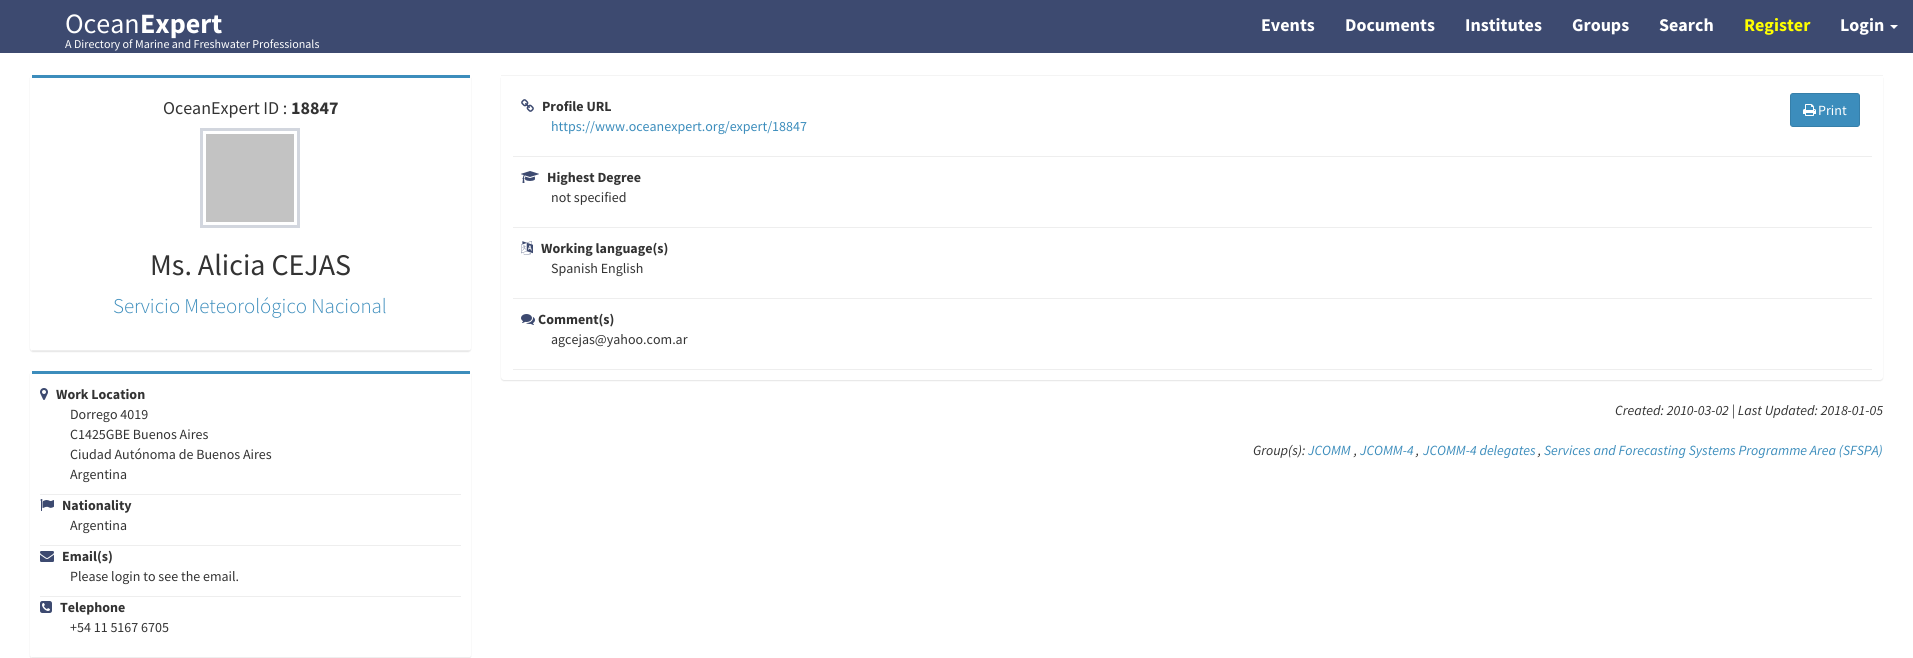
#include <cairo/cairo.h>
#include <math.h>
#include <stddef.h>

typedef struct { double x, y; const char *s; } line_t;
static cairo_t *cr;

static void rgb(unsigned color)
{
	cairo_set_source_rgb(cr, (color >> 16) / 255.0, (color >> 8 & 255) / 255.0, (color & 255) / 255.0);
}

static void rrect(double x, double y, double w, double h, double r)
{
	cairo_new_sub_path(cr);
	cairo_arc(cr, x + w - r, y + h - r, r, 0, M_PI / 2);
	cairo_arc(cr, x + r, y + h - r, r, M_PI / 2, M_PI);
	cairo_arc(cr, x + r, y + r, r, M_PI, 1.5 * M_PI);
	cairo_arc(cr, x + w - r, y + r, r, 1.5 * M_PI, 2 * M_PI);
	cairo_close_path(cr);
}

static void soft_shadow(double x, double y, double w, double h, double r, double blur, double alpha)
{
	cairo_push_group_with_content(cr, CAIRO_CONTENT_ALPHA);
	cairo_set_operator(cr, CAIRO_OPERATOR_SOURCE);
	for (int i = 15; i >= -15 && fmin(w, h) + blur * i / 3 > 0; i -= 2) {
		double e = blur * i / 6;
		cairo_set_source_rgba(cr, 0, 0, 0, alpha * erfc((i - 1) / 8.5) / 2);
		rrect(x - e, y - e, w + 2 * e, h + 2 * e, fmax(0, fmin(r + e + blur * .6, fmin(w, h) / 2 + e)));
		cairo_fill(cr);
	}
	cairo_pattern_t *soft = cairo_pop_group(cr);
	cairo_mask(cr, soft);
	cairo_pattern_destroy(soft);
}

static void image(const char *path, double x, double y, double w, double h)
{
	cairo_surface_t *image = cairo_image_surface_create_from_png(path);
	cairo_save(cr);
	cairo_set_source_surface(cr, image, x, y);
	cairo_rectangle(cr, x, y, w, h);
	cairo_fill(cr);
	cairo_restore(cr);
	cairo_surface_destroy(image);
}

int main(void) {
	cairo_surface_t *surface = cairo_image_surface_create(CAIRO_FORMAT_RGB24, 1913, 658);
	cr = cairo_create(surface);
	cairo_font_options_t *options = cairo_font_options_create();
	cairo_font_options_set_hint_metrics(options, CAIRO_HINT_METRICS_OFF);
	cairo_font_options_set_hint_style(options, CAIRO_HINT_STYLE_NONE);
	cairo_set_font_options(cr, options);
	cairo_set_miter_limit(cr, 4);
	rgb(0xffffff);
	cairo_paint(cr);
	rgb(0x3d4a70);
	cairo_rectangle(cr, 0, 0, 1913, 53);
	cairo_fill(cr);
	rgb(0xffffff);
	cairo_new_path(cr);
	cairo_move_to(cr, 1890, 25);
	cairo_line_to(cr, 1898, 25);
	cairo_line_to(cr, 1894, 29);
	cairo_close_path(cr);
	cairo_fill(cr);
	rgb(0x000000);
	soft_shadow(30, 76, 441, 276, 3, 0.5, 0.1);
	rgb(0xffffff);
	rrect(30, 75, 441, 276, 3);
	cairo_fill(cr);
	rgb(0x3c8dbc);
	cairo_rectangle(cr, 32, 75, 438, 3);
	cairo_fill(cr);
	rgb(0xeeeeee);
	cairo_rectangle(cr, 32, 350, 438, 1);
	cairo_fill(cr);
	cairo_rectangle(cr, 201.5, 129.5, 97, 97);
	rgb(0xd2d6de);
	cairo_set_line_width(cr, 3);
	cairo_stroke(cr);
	rgb(0xc3c3c3);
	cairo_rectangle(cr, 206, 134, 88, 88);
	cairo_fill(cr);
	rgb(0x000000);
	soft_shadow(30, 372, 441, 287, 3, 0.5, 0.1);
	rgb(0xffffff);
	rrect(30, 371, 441, 287, 3);
	cairo_fill(cr);
	rgb(0x3c8dbc);
	cairo_rectangle(cr, 32, 371, 438, 3);
	cairo_fill(cr);
	rgb(0xeeeeee);
	cairo_rectangle(cr, 32, 657, 438, 1);
	cairo_fill(cr);
	image("img/1.png", 40, 388, 8, 12);
	cairo_rectangle(cr, 40, 494, 421, 1);
	cairo_fill(cr);
	image("img/2.png", 40, 499, 14, 12);
	cairo_rectangle(cr, 40, 545, 421, 1);
	cairo_fill(cr);
	image("img/3.png", 40, 551, 14, 11);
	cairo_rectangle(cr, 40, 596, 421, 1);
	cairo_fill(cr);
	image("img/4.png", 40, 601, 12, 12);
	rgb(0x000000);
	soft_shadow(501, 76, 1382, 305, 3, 0.5, 0.1);
	rgb(0xf4f4f4);
	cairo_rectangle(cr, 501, 75, 1382, 1);
	cairo_fill(cr);
	rgb(0xffffff);
	cairo_new_path(cr);
	cairo_move_to(cr, 501, 76);
	cairo_line_to(cr, 1883, 76);
	cairo_line_to(cr, 1883, 377);
	cairo_curve_to(cr, 1883, 378.5, 1881.5, 380, 1880, 380);
	cairo_line_to(cr, 504, 380);
	cairo_curve_to(cr, 502.5, 380, 501, 378.5, 501, 377);
	cairo_close_path(cr);
	cairo_fill(cr);
	rgb(0xeeeeee);
	cairo_rectangle(cr, 513, 156, 1359, 1);
	cairo_fill(cr);
	image("img/5.png", 521, 99, 13, 13);
	rgb(0x3c8dbc);
	rrect(1790.5, 93.5, 69, 33, 2.5);
	cairo_fill_preserve(cr);
	rgb(0x367fa9);
	cairo_set_line_width(cr, 1);
	cairo_stroke(cr);
	image("img/6.png", 1803, 104, 13, 12);
	rgb(0xeeeeee);
	cairo_rectangle(cr, 513, 227, 1359, 1);
	cairo_fill(cr);
	image("img/7.png", 521, 171, 18, 12);
	cairo_rectangle(cr, 513, 298, 1359, 1);
	cairo_fill(cr);
	image("img/8.png", 521, 241, 12, 14);
	cairo_rectangle(cr, 513, 369, 1359, 1);
	cairo_fill(cr);
	image("img/9.png", 521, 314, 14, 11);
	cairo_select_font_face(cr, "Source Sans Pro", CAIRO_FONT_SLANT_NORMAL, CAIRO_FONT_WEIGHT_NORMAL);
	cairo_set_font_size(cr, 28);
	rgb(0xffffff);
	cairo_move_to(cr, 65, 33);
	cairo_show_text(cr, "Ocean");
	cairo_select_font_face(cr, "Source Sans Pro", CAIRO_FONT_SLANT_NORMAL, CAIRO_FONT_WEIGHT_BOLD);
	cairo_move_to(cr, 140, 33);
	cairo_show_text(cr, "Expert");
	cairo_select_font_face(cr, "Source Sans Pro", CAIRO_FONT_SLANT_NORMAL, CAIRO_FONT_WEIGHT_NORMAL);
	cairo_set_font_size(cr, 12);
	cairo_move_to(cr, 65, 48);
	cairo_show_text(cr, "A Directory of Marine and Freshwater Professionals");
	cairo_select_font_face(cr, "Source Sans Pro", CAIRO_FONT_SLANT_NORMAL, CAIRO_FONT_WEIGHT_BOLD);
	cairo_set_font_size(cr, 18);
	{
		static const line_t items[] = {
			{1261, 31, "Events"},
			{1345, 31, "Documents"},
			{1465, 31, "Institutes"},
			{1572, 31, "Groups"},
			{1659, 31, "Search"},
		};
		for (size_t i = 0; i < sizeof items / sizeof *items; i++) {
			cairo_move_to(cr, items[i].x, items[i].y);
			cairo_show_text(cr, items[i].s);
		}
	}
	rgb(0xffff00);
	cairo_move_to(cr, 1744, 31);
	cairo_show_text(cr, "Register");
	rgb(0xffffff);
	cairo_move_to(cr, 1840, 31);
	cairo_show_text(cr, "Login");
	cairo_select_font_face(cr, "Source Sans Pro", CAIRO_FONT_SLANT_NORMAL, CAIRO_FONT_WEIGHT_NORMAL);
	rgb(0x333333);
	cairo_move_to(cr, 163, 114);
	cairo_show_text(cr, "OceanExpert ID :");
	cairo_select_font_face(cr, "Source Sans Pro", CAIRO_FONT_SLANT_NORMAL, CAIRO_FONT_WEIGHT_BOLD);
	cairo_move_to(cr, 291, 114);
	cairo_show_text(cr, "18847");
	cairo_select_font_face(cr, "Source Sans Pro", CAIRO_FONT_SLANT_NORMAL, CAIRO_FONT_WEIGHT_NORMAL);
	cairo_set_font_size(cr, 30);
	cairo_move_to(cr, 150, 275);
	cairo_show_text(cr, "Ms. Alicia CEJAS");
	cairo_select_font_face(cr, "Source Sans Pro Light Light", CAIRO_FONT_SLANT_NORMAL, CAIRO_FONT_WEIGHT_NORMAL);
	cairo_set_font_size(cr, 21);
	rgb(0x3c8dbc);
	cairo_move_to(cr, 113, 313);
	cairo_show_text(cr, "Servicio Meteorológico Nacional");
	cairo_select_font_face(cr, "Source Sans Pro", CAIRO_FONT_SLANT_NORMAL, CAIRO_FONT_WEIGHT_BOLD);
	cairo_set_font_size(cr, 14);
	rgb(0x333333);
	cairo_move_to(cr, 56, 399);
	cairo_show_text(cr, "Work Location");
	cairo_select_font_face(cr, "Source Sans Pro", CAIRO_FONT_SLANT_NORMAL, CAIRO_FONT_WEIGHT_NORMAL);
	{
		static const line_t items[] = {
			{70, 419, "Dorrego 4019"},
			{70, 439, "C1425GBE Buenos Aires"},
			{70, 459, "Ciudad Autónoma de Buenos Aires"},
			{70, 479, "Argentina"},
		};
		for (size_t i = 0; i < sizeof items / sizeof *items; i++) {
			cairo_move_to(cr, items[i].x, items[i].y);
			cairo_show_text(cr, items[i].s);
		}
	}
	cairo_select_font_face(cr, "Source Sans Pro", CAIRO_FONT_SLANT_NORMAL, CAIRO_FONT_WEIGHT_BOLD);
	cairo_move_to(cr, 62, 510);
	cairo_show_text(cr, "Nationality");
	cairo_select_font_face(cr, "Source Sans Pro", CAIRO_FONT_SLANT_NORMAL, CAIRO_FONT_WEIGHT_NORMAL);
	cairo_move_to(cr, 70, 530);
	cairo_show_text(cr, "Argentina");
	cairo_select_font_face(cr, "Source Sans Pro", CAIRO_FONT_SLANT_NORMAL, CAIRO_FONT_WEIGHT_BOLD);
	cairo_move_to(cr, 62, 561);
	cairo_show_text(cr, "Email(s)");
	cairo_select_font_face(cr, "Source Sans Pro", CAIRO_FONT_SLANT_NORMAL, CAIRO_FONT_WEIGHT_NORMAL);
	cairo_move_to(cr, 70, 581);
	cairo_show_text(cr, "Please login to see the email.");
	cairo_select_font_face(cr, "Source Sans Pro", CAIRO_FONT_SLANT_NORMAL, CAIRO_FONT_WEIGHT_BOLD);
	cairo_move_to(cr, 60, 612);
	cairo_show_text(cr, "Telephone");
	cairo_select_font_face(cr, "Source Sans Pro", CAIRO_FONT_SLANT_NORMAL, CAIRO_FONT_WEIGHT_NORMAL);
	cairo_move_to(cr, 70, 632);
	cairo_show_text(cr, "+54 11 5167 6705");
	cairo_select_font_face(cr, "Source Sans Pro", CAIRO_FONT_SLANT_NORMAL, CAIRO_FONT_WEIGHT_BOLD);
	cairo_move_to(cr, 542, 111);
	cairo_show_text(cr, "Profile URL");
	cairo_select_font_face(cr, "Source Sans Pro", CAIRO_FONT_SLANT_NORMAL, CAIRO_FONT_WEIGHT_NORMAL);
	rgb(0x3c8dbc);
	cairo_move_to(cr, 551, 131);
	cairo_show_text(cr, "https://www.oceanexpert.org/expert/18847");
	rgb(0xffffff);
	cairo_move_to(cr, 1818, 115);
	cairo_show_text(cr, "Print");
	cairo_select_font_face(cr, "Source Sans Pro", CAIRO_FONT_SLANT_NORMAL, CAIRO_FONT_WEIGHT_BOLD);
	rgb(0x333333);
	cairo_move_to(cr, 547, 182);
	cairo_show_text(cr, "Highest Degree");
	cairo_select_font_face(cr, "Source Sans Pro", CAIRO_FONT_SLANT_NORMAL, CAIRO_FONT_WEIGHT_NORMAL);
	cairo_move_to(cr, 551, 202);
	cairo_show_text(cr, "not specified");
	cairo_select_font_face(cr, "Source Sans Pro", CAIRO_FONT_SLANT_NORMAL, CAIRO_FONT_WEIGHT_BOLD);
	cairo_move_to(cr, 541, 253);
	cairo_show_text(cr, "Working language(s)");
	cairo_select_font_face(cr, "Source Sans Pro", CAIRO_FONT_SLANT_NORMAL, CAIRO_FONT_WEIGHT_NORMAL);
	cairo_move_to(cr, 551, 273);
	cairo_show_text(cr, "Spanish English");
	cairo_select_font_face(cr, "Source Sans Pro", CAIRO_FONT_SLANT_NORMAL, CAIRO_FONT_WEIGHT_BOLD);
	cairo_move_to(cr, 538, 324);
	cairo_show_text(cr, "Comment(s)");
	cairo_select_font_face(cr, "Source Sans Pro", CAIRO_FONT_SLANT_NORMAL, CAIRO_FONT_WEIGHT_NORMAL);
	cairo_move_to(cr, 551, 344);
	cairo_show_text(cr, "agcejas@yahoo.com.ar");
	cairo_select_font_face(cr, "Source Sans Pro", CAIRO_FONT_SLANT_ITALIC, CAIRO_FONT_WEIGHT_NORMAL);
	cairo_move_to(cr, 1615, 415);
	cairo_show_text(cr, "Created: 2010-03-02 | Last Updated: 2018-01-05");
	cairo_move_to(cr, 1253, 455);
	cairo_show_text(cr, "Group(s):");
	rgb(0x3c8dbc);
	cairo_move_to(cr, 1308, 455);
	cairo_show_text(cr, "JCOMM");
	rgb(0x333333);
	cairo_move_to(cr, 1354, 455);
	cairo_show_text(cr, ",");
	rgb(0x3c8dbc);
	cairo_move_to(cr, 1360, 455);
	cairo_show_text(cr, "JCOMM-4");
	rgb(0x333333);
	cairo_move_to(cr, 1416, 455);
	cairo_show_text(cr, ",");
	rgb(0x3c8dbc);
	cairo_move_to(cr, 1423, 455);
	cairo_show_text(cr, "JCOMM-4 delegates");
	rgb(0x333333);
	cairo_move_to(cr, 1538, 455);
	cairo_show_text(cr, ",");
	rgb(0x3c8dbc);
	cairo_move_to(cr, 1544, 455);
	cairo_show_text(cr, "Services and Forecasting Systems Programme Area (SFSPA)");
	cairo_surface_write_to_png(surface, "page.png");
	cairo_font_options_destroy(options);
	cairo_destroy(cr);
	cairo_surface_destroy(surface);
	return 0;
}
